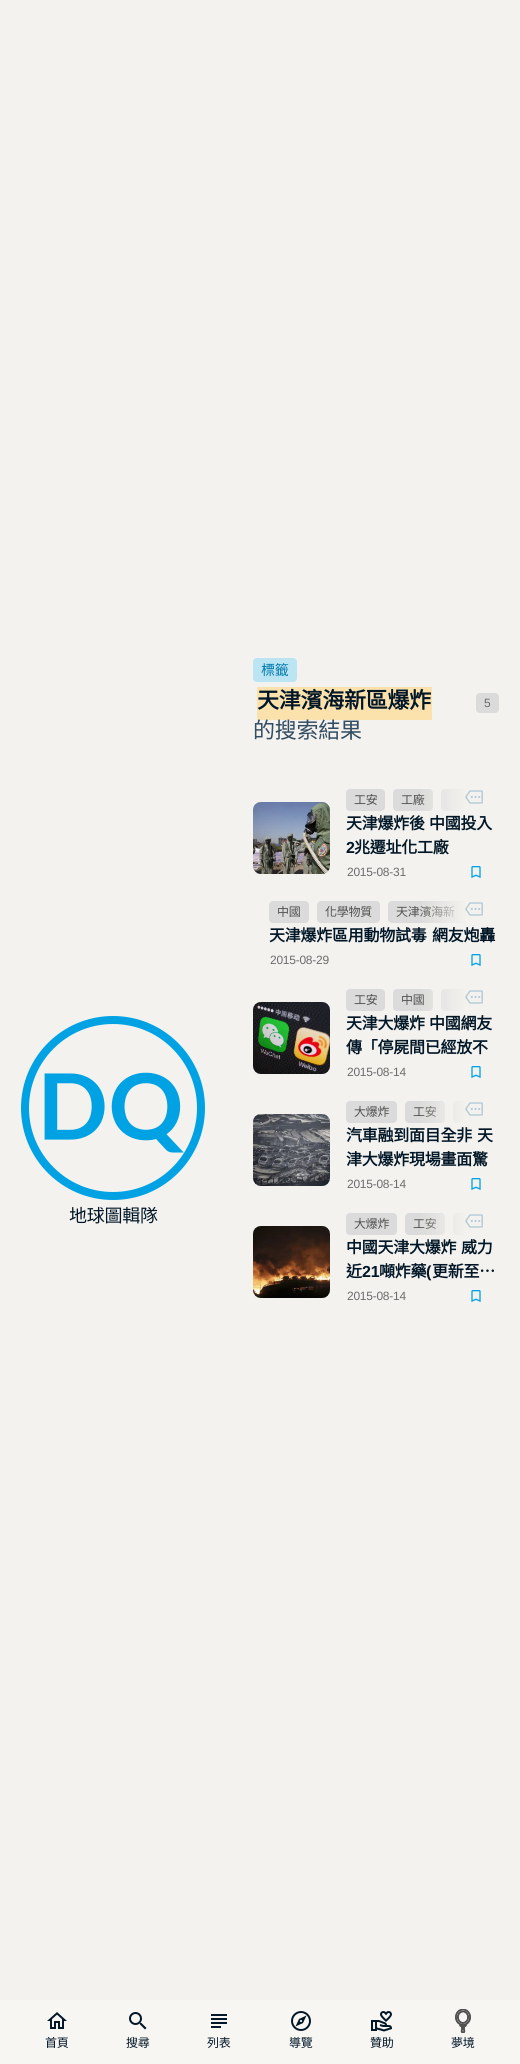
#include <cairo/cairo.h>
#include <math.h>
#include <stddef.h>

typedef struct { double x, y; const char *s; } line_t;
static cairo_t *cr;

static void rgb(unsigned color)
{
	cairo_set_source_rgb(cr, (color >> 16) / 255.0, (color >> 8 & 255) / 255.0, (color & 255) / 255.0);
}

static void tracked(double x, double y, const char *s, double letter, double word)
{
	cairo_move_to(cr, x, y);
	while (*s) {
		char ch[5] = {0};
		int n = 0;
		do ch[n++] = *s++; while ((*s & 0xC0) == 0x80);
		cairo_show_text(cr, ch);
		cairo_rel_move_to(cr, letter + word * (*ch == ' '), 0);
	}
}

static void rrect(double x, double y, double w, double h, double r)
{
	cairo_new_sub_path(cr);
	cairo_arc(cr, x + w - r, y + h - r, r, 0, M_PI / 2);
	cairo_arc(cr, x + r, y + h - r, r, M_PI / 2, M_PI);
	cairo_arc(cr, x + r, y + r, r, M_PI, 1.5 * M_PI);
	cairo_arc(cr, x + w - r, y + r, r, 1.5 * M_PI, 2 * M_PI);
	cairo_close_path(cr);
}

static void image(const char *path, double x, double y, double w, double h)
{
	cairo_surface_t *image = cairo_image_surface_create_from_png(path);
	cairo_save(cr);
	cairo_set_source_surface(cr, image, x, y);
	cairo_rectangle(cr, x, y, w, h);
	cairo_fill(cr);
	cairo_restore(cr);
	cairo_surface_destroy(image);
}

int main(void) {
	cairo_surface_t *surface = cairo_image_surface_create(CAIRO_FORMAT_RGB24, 520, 2064);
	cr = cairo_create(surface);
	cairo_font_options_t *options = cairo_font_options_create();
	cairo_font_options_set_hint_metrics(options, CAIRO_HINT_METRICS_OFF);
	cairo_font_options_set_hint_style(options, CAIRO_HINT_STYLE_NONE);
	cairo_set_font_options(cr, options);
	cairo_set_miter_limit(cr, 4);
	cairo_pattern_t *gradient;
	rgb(0xf3f2ee);
	cairo_paint(cr);
	image("img/1.png", 21, 1016, 184, 184);
	rgb(0xbbe5f3);
	rrect(253, 658, 44, 24, 4);
	cairo_fill(cr);
	rgb(0xfbe2ad);
	cairo_rectangle(cr, 257, 687, 175, 33);
	cairo_fill(cr);
	rgb(0xdbdbdb);
	rrect(476, 693, 23, 20, 4);
	cairo_fill(cr);
	rrect(253, 802, 77, 72, 8);
	cairo_fill(cr);
	image("img/2.png", 253, 802, 77, 72);
	rrect(441, 789, 40, 22, 4);
	cairo_fill(cr);
	rrect(346, 789, 39, 22, 4);
	cairo_fill(cr);
	rrect(393, 789, 40, 22, 4);
	cairo_fill(cr);
	image("img/4.png", 471, 866, 10, 12);
	rrect(269, 901, 40, 22, 4);
	cairo_fill(cr);
	rrect(317, 901, 63, 22, 4);
	cairo_fill(cr);
	rrect(388, 901, 111, 22, 4);
	cairo_fill(cr);
	image("img/4.png", 471, 954, 10, 12);
	rrect(253, 1002, 77, 72, 8);
	cairo_fill(cr);
	image("img/6.png", 253, 1002, 77, 72);
	rrect(441, 989, 40, 22, 4);
	cairo_fill(cr);
	rrect(346, 989, 39, 22, 4);
	cairo_fill(cr);
	rrect(393, 989, 40, 22, 4);
	cairo_fill(cr);
	image("img/4.png", 471, 1066, 10, 12);
	rrect(253, 1114, 77, 72, 8);
	cairo_fill(cr);
	image("img/8.png", 253, 1114, 77, 72);
	rrect(453, 1101, 40, 22, 4);
	cairo_fill(cr);
	rrect(346, 1101, 51, 22, 4);
	cairo_fill(cr);
	rrect(405, 1101, 40, 22, 4);
	cairo_fill(cr);
	image("img/4.png", 471, 1178, 10, 12);
	rrect(253, 1226, 77, 72, 8);
	cairo_fill(cr);
	image("img/10.png", 253, 1226, 77, 72);
	rrect(453, 1213, 40, 22, 4);
	cairo_fill(cr);
	rrect(346, 1213, 51, 22, 4);
	cairo_fill(cr);
	rrect(405, 1213, 40, 22, 4);
	cairo_fill(cr);
	image("img/4.png", 471, 1290, 10, 12);
	rgb(0xf7f6f3);
	cairo_rectangle(cr, 0, 2000, 520, 64);
	cairo_fill(cr);
	image("img/11.png", 47, 2012, 20, 17);
	image("img/12.png", 129, 2012, 18, 18);
	image("img/13.png", 211, 2014, 16, 14);
	image("img/14.png", 291, 2011, 20, 20);
	image("img/15.png", 371, 2011, 21, 21);
	image("img/16.png", 455, 2009, 16, 24);
	cairo_select_font_face(cr, "Noto Sans CJK TC", CAIRO_FONT_SLANT_NORMAL, CAIRO_FONT_WEIGHT_NORMAL);
	cairo_set_font_size(cr, 18);
	rgb(0x011627);
	tracked(69, 1222, "地球圖輯隊", -0.25, 0);
	cairo_set_font_size(cr, 14);
	rgb(0x0079ab);
	tracked(261, 675, "標籤", -0.25, 0);
	cairo_select_font_face(cr, "Noto Sans CJK TC", CAIRO_FONT_SLANT_NORMAL, CAIRO_FONT_WEIGHT_BOLD);
	cairo_set_font_size(cr, 22);
	rgb(0x011627);
	tracked(257, 708, "天津濱海新區爆炸", -0.25, 0);
	cairo_select_font_face(cr, "Noto Sans CJK TC", CAIRO_FONT_SLANT_NORMAL, CAIRO_FONT_WEIGHT_NORMAL);
	rgb(0x334c61);
	tracked(253, 738, "的搜索結果", -0.25, 0);
	cairo_select_font_face(cr, "Liberation Sans", CAIRO_FONT_SLANT_NORMAL, CAIRO_FONT_WEIGHT_NORMAL);
	cairo_set_font_size(cr, 12);
	rgb(0x6c6c6d);
	tracked(484, 707, "5", -0.25, 0);
	cairo_select_font_face(cr, "Noto Sans CJK TC", CAIRO_FONT_SLANT_NORMAL, CAIRO_FONT_WEIGHT_NORMAL);
	rgb(0x505050);
	tracked(354, 804, "工安", -0.25, 0);
	tracked(401, 804, "工廠", -0.25, 0);
	gradient = cairo_pattern_create_linear(499, 802, 346, 802);
	cairo_pattern_add_color_stop_rgba(gradient, 0.21, 0.953, 0.949, 0.933, 1);
	cairo_pattern_add_color_stop_rgba(gradient, 0.52, 0.953, 0.949, 0.933, 0);
	cairo_set_source(cr, gradient);
	cairo_pattern_destroy(gradient);
	cairo_rectangle(cr, 420, 789, 61, 22);
	cairo_fill(cr);
	image("img/3.png", 465, 790, 18, 14);
	cairo_select_font_face(cr, "Noto Sans CJK TC", CAIRO_FONT_SLANT_NORMAL, CAIRO_FONT_WEIGHT_BOLD);
	cairo_set_font_size(cr, 16);
	rgb(0x011627);
	tracked(346, 829, "天津爆炸後", -0.25, 0);
	tracked(429, 829, "中國投入", -0.25, 0);
	cairo_select_font_face(cr, "Liberation Sans", CAIRO_FONT_SLANT_NORMAL, CAIRO_FONT_WEIGHT_BOLD);
	tracked(346, 853, "2", -0.25, 0);
	cairo_select_font_face(cr, "Noto Sans CJK TC", CAIRO_FONT_SLANT_NORMAL, CAIRO_FONT_WEIGHT_BOLD);
	tracked(354, 853, "兆遷址化工廠", -0.25, 0);
	cairo_select_font_face(cr, "Liberation Sans", CAIRO_FONT_SLANT_NORMAL, CAIRO_FONT_WEIGHT_NORMAL);
	cairo_set_font_size(cr, 12);
	rgb(0x6c6c6d);
	tracked(347, 876, "2015-08-31", -0.25, 0);
	cairo_select_font_face(cr, "Noto Sans CJK TC", CAIRO_FONT_SLANT_NORMAL, CAIRO_FONT_WEIGHT_NORMAL);
	rgb(0x505050);
	{
		static const line_t items[] = {
			{277, 916, "中國"},
			{325, 916, "化學物質"},
			{396, 916, "天津濱海新"},
		};
		for (size_t i = 0; i < sizeof items / sizeof *items; i++) {
			tracked(items[i].x, items[i].y, items[i].s, -0.25, 0);
		}
	}
	gradient = cairo_pattern_create_linear(499, 914, 269, 914);
	cairo_pattern_add_color_stop_rgba(gradient, 0.14, 0.953, 0.949, 0.933, 1);
	cairo_pattern_add_color_stop_rgba(gradient, 0.35, 0.953, 0.949, 0.933, 0);
	cairo_set_source(cr, gradient);
	cairo_pattern_destroy(gradient);
	cairo_rectangle(cr, 421, 901, 78, 22);
	cairo_fill(cr);
	image("img/5.png", 465, 902, 18, 14);
	cairo_select_font_face(cr, "Noto Sans CJK TC", CAIRO_FONT_SLANT_NORMAL, CAIRO_FONT_WEIGHT_BOLD);
	cairo_set_font_size(cr, 16);
	rgb(0x011627);
	tracked(269, 941, "天津爆炸區用動物試毒", -0.25, 0);
	tracked(432, 941, "網友炮轟", -0.25, 0);
	cairo_select_font_face(cr, "Liberation Sans", CAIRO_FONT_SLANT_NORMAL, CAIRO_FONT_WEIGHT_NORMAL);
	cairo_set_font_size(cr, 12);
	rgb(0x6c6c6d);
	tracked(270, 964, "2015-08-29", -0.25, 0);
	cairo_select_font_face(cr, "Noto Sans CJK TC", CAIRO_FONT_SLANT_NORMAL, CAIRO_FONT_WEIGHT_NORMAL);
	rgb(0x505050);
	tracked(354, 1004, "工安", -0.25, 0);
	tracked(401, 1004, "中國", -0.25, 0);
	gradient = cairo_pattern_create_linear(499, 1002, 346, 1002);
	cairo_pattern_add_color_stop_rgba(gradient, 0.21, 0.953, 0.949, 0.933, 1);
	cairo_pattern_add_color_stop_rgba(gradient, 0.52, 0.953, 0.949, 0.933, 0);
	cairo_set_source(cr, gradient);
	cairo_pattern_destroy(gradient);
	cairo_rectangle(cr, 420, 989, 61, 22);
	cairo_fill(cr);
	image("img/7.png", 465, 990, 18, 14);
	cairo_select_font_face(cr, "Noto Sans CJK TC", CAIRO_FONT_SLANT_NORMAL, CAIRO_FONT_WEIGHT_BOLD);
	cairo_set_font_size(cr, 16);
	rgb(0x011627);
	{
		static const line_t items[] = {
			{346, 1029, "天津大爆炸"},
			{429, 1029, "中國網友"},
			{346, 1053, "傳「停屍間已經放不"},
		};
		for (size_t i = 0; i < sizeof items / sizeof *items; i++) {
			tracked(items[i].x, items[i].y, items[i].s, -0.25, 0);
		}
	}
	cairo_select_font_face(cr, "Liberation Sans", CAIRO_FONT_SLANT_NORMAL, CAIRO_FONT_WEIGHT_NORMAL);
	cairo_set_font_size(cr, 12);
	rgb(0x6c6c6d);
	tracked(347, 1076, "2015-08-14", -0.25, 0);
	cairo_select_font_face(cr, "Noto Sans CJK TC", CAIRO_FONT_SLANT_NORMAL, CAIRO_FONT_WEIGHT_NORMAL);
	rgb(0x505050);
	tracked(354, 1116, "大爆炸", -0.25, 0);
	tracked(413, 1116, "工安", -0.25, 0);
	gradient = cairo_pattern_create_linear(499, 1114, 346, 1114);
	cairo_pattern_add_color_stop_rgba(gradient, 0.21, 0.953, 0.949, 0.933, 1);
	cairo_pattern_add_color_stop_rgba(gradient, 0.52, 0.953, 0.949, 0.933, 0);
	cairo_set_source(cr, gradient);
	cairo_pattern_destroy(gradient);
	cairo_rectangle(cr, 420, 1101, 73, 22);
	cairo_fill(cr);
	image("img/9.png", 465, 1102, 18, 14);
	cairo_select_font_face(cr, "Noto Sans CJK TC", CAIRO_FONT_SLANT_NORMAL, CAIRO_FONT_WEIGHT_BOLD);
	cairo_set_font_size(cr, 16);
	rgb(0x011627);
	{
		static const line_t items[] = {
			{346, 1141, "汽車融到面目全非"},
			{477, 1141, "天"},
			{346, 1165, "津大爆炸現場畫面驚"},
		};
		for (size_t i = 0; i < sizeof items / sizeof *items; i++) {
			tracked(items[i].x, items[i].y, items[i].s, -0.25, 0);
		}
	}
	cairo_select_font_face(cr, "Liberation Sans", CAIRO_FONT_SLANT_NORMAL, CAIRO_FONT_WEIGHT_NORMAL);
	cairo_set_font_size(cr, 12);
	rgb(0x6c6c6d);
	tracked(347, 1188, "2015-08-14", -0.25, 0);
	cairo_select_font_face(cr, "Noto Sans CJK TC", CAIRO_FONT_SLANT_NORMAL, CAIRO_FONT_WEIGHT_NORMAL);
	rgb(0x505050);
	tracked(354, 1228, "大爆炸", -0.25, 0);
	tracked(413, 1228, "工安", -0.25, 0);
	gradient = cairo_pattern_create_linear(499, 1226, 346, 1226);
	cairo_pattern_add_color_stop_rgba(gradient, 0.21, 0.953, 0.949, 0.933, 1);
	cairo_pattern_add_color_stop_rgba(gradient, 0.52, 0.953, 0.949, 0.933, 0);
	cairo_set_source(cr, gradient);
	cairo_pattern_destroy(gradient);
	cairo_rectangle(cr, 420, 1213, 73, 22);
	cairo_fill(cr);
	image("img/9.png", 465, 1214, 18, 14);
	cairo_select_font_face(cr, "Noto Sans CJK TC", CAIRO_FONT_SLANT_NORMAL, CAIRO_FONT_WEIGHT_BOLD);
	cairo_set_font_size(cr, 16);
	rgb(0x011627);
	{
		static const line_t items[] = {
			{346, 1253, "中國天津大爆炸"},
			{461, 1253, "威力"},
			{346, 1277, "近"},
		};
		for (size_t i = 0; i < sizeof items / sizeof *items; i++) {
			tracked(items[i].x, items[i].y, items[i].s, -0.25, 0);
		}
	}
	cairo_select_font_face(cr, "Liberation Sans", CAIRO_FONT_SLANT_NORMAL, CAIRO_FONT_WEIGHT_BOLD);
	tracked(362, 1277, "21", -0.25, 0);
	cairo_select_font_face(cr, "Noto Sans CJK TC", CAIRO_FONT_SLANT_NORMAL, CAIRO_FONT_WEIGHT_BOLD);
	tracked(379, 1277, "噸炸藥", -0.25, 0);
	cairo_select_font_face(cr, "Liberation Sans", CAIRO_FONT_SLANT_NORMAL, CAIRO_FONT_WEIGHT_BOLD);
	tracked(426, 1277, "(", -0.25, 0);
	cairo_select_font_face(cr, "Noto Sans CJK TC", CAIRO_FONT_SLANT_NORMAL, CAIRO_FONT_WEIGHT_BOLD);
	tracked(432, 1277, "更新至…", -0.25, 0);
	cairo_select_font_face(cr, "Liberation Sans", CAIRO_FONT_SLANT_NORMAL, CAIRO_FONT_WEIGHT_NORMAL);
	cairo_set_font_size(cr, 12);
	rgb(0x6c6c6d);
	tracked(347, 1300, "2015-08-14", -0.25, 0);
	cairo_select_font_face(cr, "Noto Sans CJK TC", CAIRO_FONT_SLANT_NORMAL, CAIRO_FONT_WEIGHT_NORMAL);
	rgb(0x011627);
	{
		static const line_t items[] = {
			{45, 2047, "首頁"},
			{126, 2047, "搜尋"},
			{207, 2047, "列表"},
			{289, 2047, "導覽"},
			{370, 2047, "贊助"},
			{451, 2047, "夢境"},
		};
		for (size_t i = 0; i < sizeof items / sizeof *items; i++) {
			tracked(items[i].x, items[i].y, items[i].s, -0.25, 0);
		}
	}
	cairo_surface_write_to_png(surface, "page.png");
	cairo_font_options_destroy(options);
	cairo_destroy(cr);
	cairo_surface_destroy(surface);
	return 0;
}
